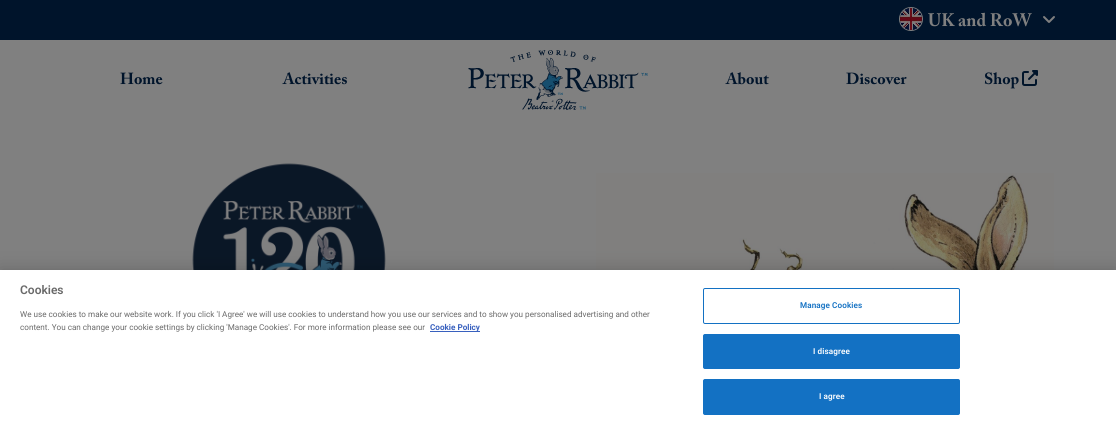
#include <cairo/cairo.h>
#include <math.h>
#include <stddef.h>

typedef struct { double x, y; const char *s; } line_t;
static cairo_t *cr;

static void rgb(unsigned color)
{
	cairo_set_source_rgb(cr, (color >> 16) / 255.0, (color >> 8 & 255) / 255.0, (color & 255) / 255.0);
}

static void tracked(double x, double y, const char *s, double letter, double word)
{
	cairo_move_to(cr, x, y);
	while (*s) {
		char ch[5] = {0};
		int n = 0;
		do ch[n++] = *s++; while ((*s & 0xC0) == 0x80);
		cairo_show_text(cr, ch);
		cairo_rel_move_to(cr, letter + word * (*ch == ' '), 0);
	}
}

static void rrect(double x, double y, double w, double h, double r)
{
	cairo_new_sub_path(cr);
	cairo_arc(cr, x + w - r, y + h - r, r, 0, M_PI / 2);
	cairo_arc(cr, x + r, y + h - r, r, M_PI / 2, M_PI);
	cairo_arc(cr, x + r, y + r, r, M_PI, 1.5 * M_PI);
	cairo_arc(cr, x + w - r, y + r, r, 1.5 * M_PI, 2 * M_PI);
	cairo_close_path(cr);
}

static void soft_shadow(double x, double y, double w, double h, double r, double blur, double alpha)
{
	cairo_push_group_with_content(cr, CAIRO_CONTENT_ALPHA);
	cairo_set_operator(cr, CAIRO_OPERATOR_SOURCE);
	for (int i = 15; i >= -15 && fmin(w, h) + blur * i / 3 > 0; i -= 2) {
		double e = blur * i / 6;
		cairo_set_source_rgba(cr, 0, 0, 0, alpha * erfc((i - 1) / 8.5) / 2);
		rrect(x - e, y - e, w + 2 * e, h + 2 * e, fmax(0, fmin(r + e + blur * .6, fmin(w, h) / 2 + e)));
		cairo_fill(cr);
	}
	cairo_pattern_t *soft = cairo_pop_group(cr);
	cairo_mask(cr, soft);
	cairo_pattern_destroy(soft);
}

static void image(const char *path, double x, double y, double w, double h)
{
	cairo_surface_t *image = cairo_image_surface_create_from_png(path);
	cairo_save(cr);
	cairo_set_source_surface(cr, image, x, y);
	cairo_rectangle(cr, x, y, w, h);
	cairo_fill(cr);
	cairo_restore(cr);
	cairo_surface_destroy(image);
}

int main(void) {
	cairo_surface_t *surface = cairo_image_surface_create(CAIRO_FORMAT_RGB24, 1116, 435);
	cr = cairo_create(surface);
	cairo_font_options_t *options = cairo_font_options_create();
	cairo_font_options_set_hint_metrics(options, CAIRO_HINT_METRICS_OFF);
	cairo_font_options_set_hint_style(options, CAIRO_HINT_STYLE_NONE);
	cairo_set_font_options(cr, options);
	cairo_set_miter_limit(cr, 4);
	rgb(0x808080);
	cairo_paint(cr);
	rgb(0x00142b);
	cairo_rectangle(cr, 0, 0, 1116, 40);
	cairo_fill(cr);
	cairo_arc(cr, 911, 19, 11.5, 0, 2 * M_PI);
	rgb(0x808080);
	cairo_set_line_width(cr, 1);
	cairo_stroke(cr);
	image("img/1.png", 900, 8, 22, 22);
	image("img/2.png", 1043, 16, 12, 7);
	image("img/3.png", 468, 50, 180, 60);
	image("img/4.png", 1022, 70, 16, 16);
	image("img/5.png", 192, 163, 194, 107);
	image("img/6.png", 596, 173, 458, 97);
	rgb(0x000000);
	soft_shadow(0, 270, 1116, 165, 0, 9, 0.2);
	rgb(0xffffff);
	cairo_rectangle(cr, 0, 270, 1116, 165);
	cairo_fill(cr);
	rgb(0x3860be);
	cairo_rectangle(cr, 430, 331, 50, 1);
	cairo_fill(cr);
	rrect(703.5, 288.5, 256, 35, 1.5);
	rgb(0x1371c3);
	cairo_stroke(cr);
	rrect(703.5, 334.5, 256, 34, 1.5);
	cairo_fill_preserve(cr);
	cairo_stroke(cr);
	rrect(703.5, 379.5, 256, 35, 1.5);
	cairo_fill_preserve(cr);
	cairo_stroke(cr);
	cairo_select_font_face(cr, "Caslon", CAIRO_FONT_SLANT_NORMAL, CAIRO_FONT_WEIGHT_BOLD);
	cairo_set_font_size(cr, 18);
	rgb(0x808080);
	cairo_move_to(cr, 928, 26);
	cairo_show_text(cr, "UK and RoW");
	cairo_set_font_size(cr, 16);
	rgb(0x00142b);
	{
		static const line_t items[] = {
			{120, 84, "Home"},
			{283, 84, "Activities"},
			{726, 84, "About"},
			{846, 84, "Discover"},
			{984, 84, "Shop"},
		};
		for (size_t i = 0; i < sizeof items / sizeof *items; i++) {
			cairo_move_to(cr, items[i].x, items[i].y);
			cairo_show_text(cr, items[i].s);
		}
	}
	cairo_select_font_face(cr, "Roboto SemiBold", CAIRO_FONT_SLANT_NORMAL, CAIRO_FONT_WEIGHT_NORMAL);
	cairo_set_font_size(cr, 12);
	rgb(0x696969);
	cairo_move_to(cr, 20, 294);
	cairo_show_text(cr, "Cookies");
	cairo_select_font_face(cr, "Roboto", CAIRO_FONT_SLANT_NORMAL, CAIRO_FONT_WEIGHT_NORMAL);
	cairo_set_font_size(cr, 8.13);
	cairo_move_to(cr, 20, 317);
	cairo_show_text(cr, "We use cookies to make our website work. If you click 'I Agree' we will use cookies to understand how you use our services and to show you personalised advertising and other");
	cairo_move_to(cr, 20, 330);
	cairo_show_text(cr, "content. You can change your cookie settings by clicking 'Manage Cookies'. For more information please see our");
	cairo_select_font_face(cr, "Roboto", CAIRO_FONT_SLANT_NORMAL, CAIRO_FONT_WEIGHT_BOLD);
	rgb(0x3860be);
	cairo_move_to(cr, 430, 330);
	cairo_show_text(cr, "Cookie Policy");
	cairo_select_font_face(cr, "Roboto SemiBold", CAIRO_FONT_SLANT_NORMAL, CAIRO_FONT_WEIGHT_NORMAL);
	rgb(0x1371c3);
	tracked(800, 308, "Manage Cookies", 0.1, 0);
	rgb(0xffffff);
	tracked(813, 354, "I disagree", 0.1, 0);
	tracked(819, 399, "I agree", 0.1, 0);
	cairo_surface_write_to_png(surface, "page.png");
	cairo_font_options_destroy(options);
	cairo_destroy(cr);
	cairo_surface_destroy(surface);
	return 0;
}
